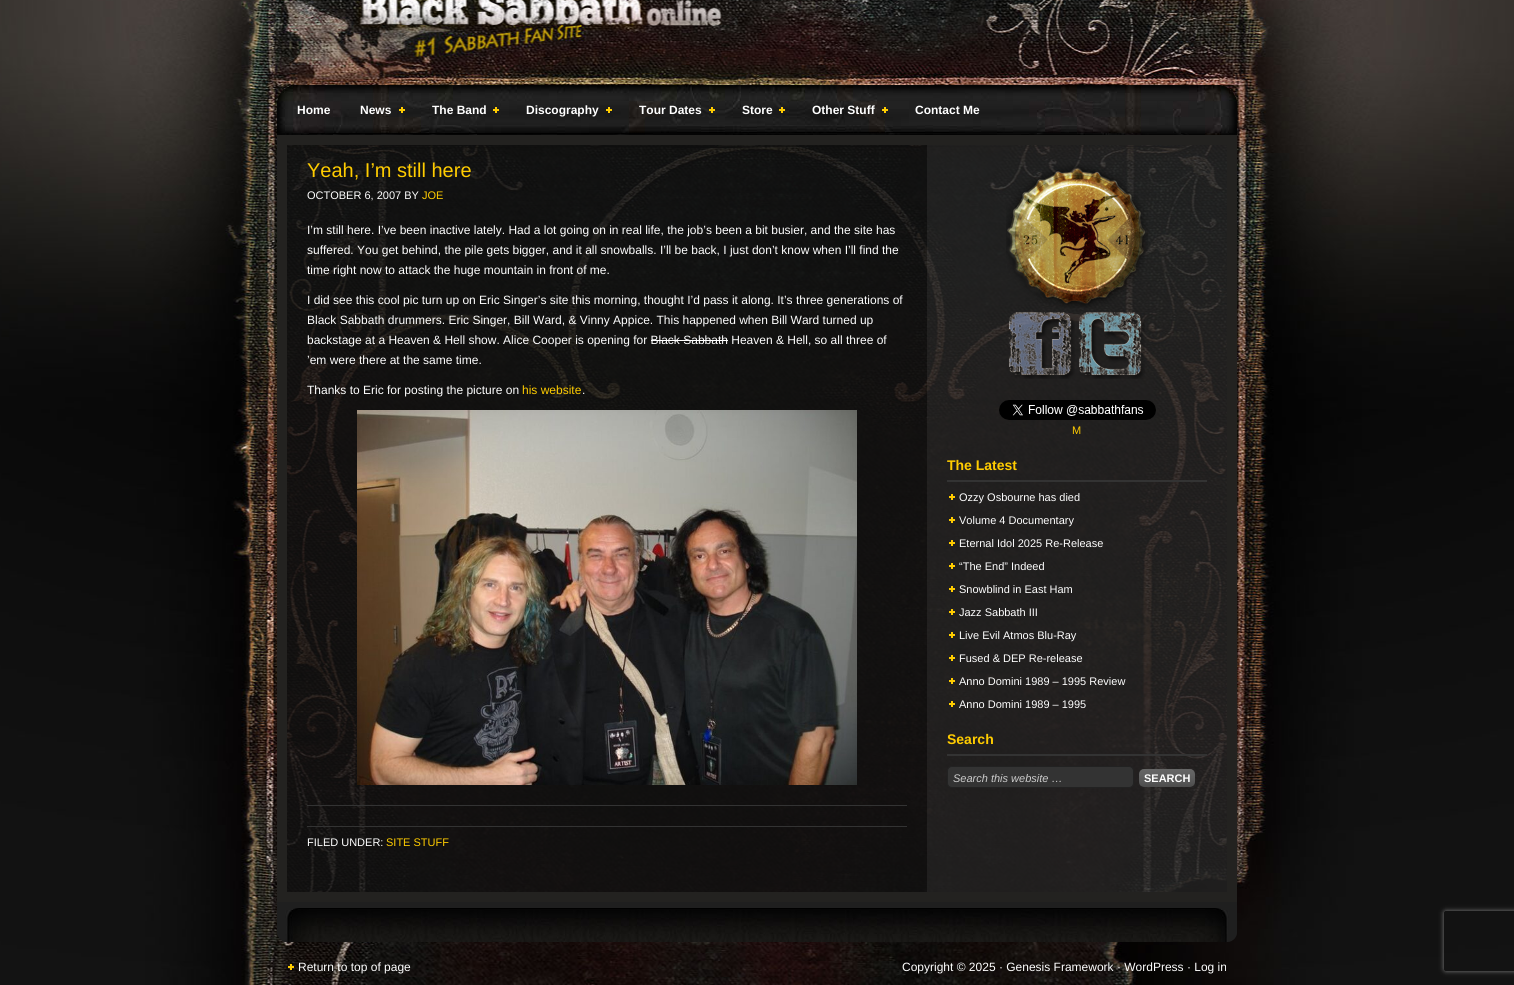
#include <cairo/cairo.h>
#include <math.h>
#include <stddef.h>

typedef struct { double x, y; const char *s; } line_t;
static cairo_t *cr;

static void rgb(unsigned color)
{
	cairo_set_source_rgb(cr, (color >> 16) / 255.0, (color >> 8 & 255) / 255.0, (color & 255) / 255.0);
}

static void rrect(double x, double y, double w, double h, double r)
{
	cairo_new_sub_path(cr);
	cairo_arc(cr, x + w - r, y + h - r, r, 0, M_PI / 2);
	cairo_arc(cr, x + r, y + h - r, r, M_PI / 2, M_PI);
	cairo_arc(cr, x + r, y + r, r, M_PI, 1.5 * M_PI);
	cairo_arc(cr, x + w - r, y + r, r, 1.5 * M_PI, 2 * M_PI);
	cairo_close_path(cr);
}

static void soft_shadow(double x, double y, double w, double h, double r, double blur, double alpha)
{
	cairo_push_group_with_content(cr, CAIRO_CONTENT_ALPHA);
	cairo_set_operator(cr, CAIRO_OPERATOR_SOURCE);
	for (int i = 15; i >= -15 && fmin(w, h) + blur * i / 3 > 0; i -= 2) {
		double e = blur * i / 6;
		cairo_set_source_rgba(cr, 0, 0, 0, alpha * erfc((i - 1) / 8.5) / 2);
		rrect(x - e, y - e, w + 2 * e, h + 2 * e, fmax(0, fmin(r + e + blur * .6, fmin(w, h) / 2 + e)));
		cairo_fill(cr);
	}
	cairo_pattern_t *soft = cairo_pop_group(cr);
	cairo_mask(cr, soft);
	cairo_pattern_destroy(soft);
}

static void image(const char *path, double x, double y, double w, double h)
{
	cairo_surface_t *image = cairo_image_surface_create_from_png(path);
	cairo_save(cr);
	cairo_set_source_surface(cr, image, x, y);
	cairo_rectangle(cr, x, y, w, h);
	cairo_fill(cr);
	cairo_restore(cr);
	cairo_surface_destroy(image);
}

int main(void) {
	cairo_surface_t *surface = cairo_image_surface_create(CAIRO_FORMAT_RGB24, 1514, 985);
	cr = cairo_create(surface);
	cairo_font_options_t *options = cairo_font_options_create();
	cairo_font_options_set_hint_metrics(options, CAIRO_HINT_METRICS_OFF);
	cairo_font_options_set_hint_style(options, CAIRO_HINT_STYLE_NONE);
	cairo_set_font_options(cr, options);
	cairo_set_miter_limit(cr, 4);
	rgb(0xffffff);
	cairo_paint(cr);
	image("img/1.png", 0, 0, 1514, 985);
	rgb(0x000000);
	cairo_new_path(cr);
	cairo_move_to(cr, 297, 85);
	cairo_line_to(cr, 1217, 85);
	cairo_curve_to(cr, 1228, 85, 1237, 94, 1237, 105);
	cairo_line_to(cr, 1237, 135);
	cairo_line_to(cr, 277, 135);
	cairo_line_to(cr, 277, 105);
	cairo_curve_to(cr, 277, 94, 286, 85, 297, 85);
	cairo_close_path(cr);
	cairo_fill(cr);
	image("img/2.png", 277, 85, 960, 50);
	image("img/3.png", 399, 107, 6, 6);
	image("img/4.png", 493, 107, 6, 6);
	image("img/5.png", 606, 107, 6, 6);
	image("img/6.png", 709, 107, 6, 6);
	image("img/7.png", 779, 107, 6, 6);
	image("img/8.png", 882, 107, 6, 6);
	image("img/9.png", 287, 145, 940, 747);
	cairo_rectangle(cr, 282, 140, 950, 757);
	rgb(0x232220);
	cairo_set_line_width(cr, 10);
	cairo_stroke(cr);
	rgb(0xffffff);
	cairo_rectangle(cr, 651, 340, 77, 1);
	cairo_fill(cr);
	image("img/10.png", 357, 410, 500, 375);
	rgb(0x333333);
	cairo_rectangle(cr, 307, 805, 600, 1);
	cairo_fill(cr);
	cairo_rectangle(cr, 307, 826, 600, 1);
	cairo_fill(cr);
	image("img/11.png", 1006, 165, 142, 143);
	image("img/12.png", 1008, 312, 67, 67);
	image("img/13.png", 1078, 312, 67, 67);
	image("img/14.png", 999, 400, 157, 20);
	cairo_rectangle(cr, 947, 480, 260, 2);
	cairo_fill(cr);
	image("img/15.png", 949, 494, 6, 6);
	image("img/16.png", 949, 517, 6, 6);
	image("img/17.png", 949, 540, 6, 6);
	image("img/18.png", 949, 563, 6, 6);
	image("img/19.png", 949, 586, 6, 6);
	image("img/20.png", 949, 609, 6, 6);
	image("img/21.png", 949, 632, 6, 6);
	image("img/22.png", 949, 655, 6, 6);
	image("img/23.png", 949, 678, 6, 6);
	image("img/24.png", 949, 701, 6, 6);
	cairo_rectangle(cr, 947, 754, 260, 2);
	cairo_fill(cr);
	rrect(947.5, 766.5, 186, 21, 4.5);
	cairo_fill_preserve(cr);
	rgb(0x222222);
	cairo_set_line_width(cr, 1);
	cairo_stroke(cr);
	image("img/25.png", 1139, 769, 56, 18);
	rgb(0x1f1f1f);
	cairo_new_path(cr);
	cairo_move_to(cr, 277, 902);
	cairo_line_to(cr, 1237, 902);
	cairo_line_to(cr, 1237, 932);
	cairo_curve_to(cr, 1237, 937.5, 1232.5, 942, 1227, 942);
	cairo_line_to(cr, 287, 942);
	cairo_curve_to(cr, 281.5, 942, 277, 937.5, 277, 932);
	cairo_close_path(cr);
	cairo_fill(cr);
	image("img/26.png", 281, 908, 956, 34);
	image("img/27.png", 288, 964, 6, 6);
	cairo_save(cr);
	cairo_set_fill_rule(cr, CAIRO_FILL_RULE_EVEN_ODD);
	cairo_new_path(cr);
	cairo_move_to(cr, 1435, 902);
	cairo_line_to(cr, 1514, 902);
	cairo_line_to(cr, 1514, 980);
	cairo_line_to(cr, 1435, 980);
	cairo_close_path(cr);
	cairo_move_to(cr, 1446, 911);
	cairo_line_to(cr, 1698, 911);
	cairo_curve_to(cr, 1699, 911, 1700, 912, 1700, 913);
	cairo_line_to(cr, 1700, 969);
	cairo_curve_to(cr, 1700, 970, 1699, 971, 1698, 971);
	cairo_line_to(cr, 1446, 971);
	cairo_curve_to(cr, 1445, 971, 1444, 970, 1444, 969);
	cairo_line_to(cr, 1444, 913);
	cairo_curve_to(cr, 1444, 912, 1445, 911, 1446, 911);
	cairo_close_path(cr);
	cairo_clip(cr);
	rgb(0x808080);
	soft_shadow(1444, 911, 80, 60, 2, 2.5, 1);
	cairo_restore(cr);
	cairo_select_font_face(cr, "Liberation Sans", CAIRO_FONT_SLANT_NORMAL, CAIRO_FONT_WEIGHT_BOLD);
	cairo_set_font_size(cr, 12);
	rgb(0xffffff);
	{
		static const line_t items[] = {
			{297, 114, "Home"},
			{360, 114, "News"},
			{432, 114, "The Band"},
			{526, 114, "Discography"},
			{639, 114, "Tour Dates"},
			{742, 114, "Store"},
			{812, 114, "Other Stuff"},
			{915, 114, "Contact Me"},
		};
		for (size_t i = 0; i < sizeof items / sizeof *items; i++) {
			cairo_move_to(cr, items[i].x, items[i].y);
			cairo_show_text(cr, items[i].s);
		}
	}
	cairo_select_font_face(cr, "Liberation Sans", CAIRO_FONT_SLANT_NORMAL, CAIRO_FONT_WEIGHT_NORMAL);
	cairo_set_font_size(cr, 20);
	rgb(0xffcc00);
	cairo_move_to(cr, 307, 177);
	cairo_show_text(cr, "Yeah, I’m still here");
	cairo_set_font_size(cr, 11);
	rgb(0xffffff);
	cairo_move_to(cr, 307, 199);
	cairo_show_text(cr, "OCTOBER 6, 2007 BY");
	rgb(0xffcc00);
	cairo_move_to(cr, 422, 199);
	cairo_show_text(cr, "JOE");
	cairo_set_font_size(cr, 12);
	rgb(0xffffff);
	{
		static const line_t items[] = {
			{307, 234, "I’m still here. I’ve been inactive lately. Had a lot going on in real life, the job’s been a bit busier, and the site has"},
			{307, 254, "suffered. You get behind, the pile gets bigger, and it all snowballs. I’ll be back, I just don’t know when I’ll find the"},
			{307, 274, "time right now to attack the huge mountain in front of me."},
			{307, 304, "I did see this cool pic turn up on Eric Singer’s site this morning, thought I’d pass it along. It’s three generations of"},
			{307, 324, "Black Sabbath drummers. Eric Singer, Bill Ward, & Vinny Appice. This happened when Bill Ward turned up"},
			{307, 344, "backstage at a Heaven & Hell show. Alice Cooper is opening for Black Sabbath Heaven & Hell, so all three of"},
			{307, 364, "’em were there at the same time."},
			{307, 394, "Thanks to Eric for posting the picture on"},
		};
		for (size_t i = 0; i < sizeof items / sizeof *items; i++) {
			cairo_move_to(cr, items[i].x, items[i].y);
			cairo_show_text(cr, items[i].s);
		}
	}
	rgb(0xffcc00);
	cairo_move_to(cr, 522, 394);
	cairo_show_text(cr, "his website");
	rgb(0xffffff);
	cairo_move_to(cr, 582, 394);
	cairo_show_text(cr, ".");
	cairo_set_font_size(cr, 11);
	cairo_move_to(cr, 307, 846);
	cairo_show_text(cr, "FILED UNDER:");
	rgb(0xffcc00);
	cairo_move_to(cr, 386, 846);
	cairo_show_text(cr, "SITE STUFF");
	cairo_move_to(cr, 1072, 434);
	cairo_show_text(cr, "M");
	cairo_select_font_face(cr, "Liberation Sans", CAIRO_FONT_SLANT_NORMAL, CAIRO_FONT_WEIGHT_BOLD);
	cairo_set_font_size(cr, 14);
	cairo_move_to(cr, 947, 470);
	cairo_show_text(cr, "The Latest");
	cairo_select_font_face(cr, "Liberation Sans", CAIRO_FONT_SLANT_NORMAL, CAIRO_FONT_WEIGHT_NORMAL);
	cairo_set_font_size(cr, 11);
	rgb(0xffffff);
	{
		static const line_t items[] = {
			{959, 501, "Ozzy Osbourne has died"},
			{959, 524, "Volume 4 Documentary"},
			{959, 547, "Eternal Idol 2025 Re-Release"},
			{959, 570, "“The End” Indeed"},
			{959, 593, "Snowblind in East Ham"},
			{959, 616, "Jazz Sabbath III"},
			{959, 639, "Live Evil Atmos Blu-Ray"},
			{959, 662, "Fused & DEP Re-release"},
			{959, 685, "Anno Domini 1989 – 1995 Review"},
			{959, 708, "Anno Domini 1989 – 1995"},
		};
		for (size_t i = 0; i < sizeof items / sizeof *items; i++) {
			cairo_move_to(cr, items[i].x, items[i].y);
			cairo_show_text(cr, items[i].s);
		}
	}
	cairo_select_font_face(cr, "Liberation Sans", CAIRO_FONT_SLANT_NORMAL, CAIRO_FONT_WEIGHT_BOLD);
	cairo_set_font_size(cr, 14);
	rgb(0xffcc00);
	cairo_move_to(cr, 947, 744);
	cairo_show_text(cr, "Search");
	cairo_select_font_face(cr, "Liberation Sans", CAIRO_FONT_SLANT_ITALIC, CAIRO_FONT_WEIGHT_NORMAL);
	cairo_set_font_size(cr, 11);
	rgb(0xcccccc);
	cairo_move_to(cr, 953, 782);
	cairo_show_text(cr, "Search this website …");
	cairo_select_font_face(cr, "Liberation Sans", CAIRO_FONT_SLANT_NORMAL, CAIRO_FONT_WEIGHT_BOLD);
	rgb(0xffffff);
	cairo_move_to(cr, 1144, 782);
	cairo_show_text(cr, "SEARCH");
	cairo_select_font_face(cr, "Liberation Sans", CAIRO_FONT_SLANT_NORMAL, CAIRO_FONT_WEIGHT_NORMAL);
	cairo_set_font_size(cr, 12);
	cairo_move_to(cr, 298, 971);
	cairo_show_text(cr, "Return to top of page");
	cairo_move_to(cr, 902, 971);
	cairo_show_text(cr, "Copyright © 2025 · Genesis Framework · WordPress · Log in");
	cairo_surface_write_to_png(surface, "page.png");
	cairo_font_options_destroy(options);
	cairo_destroy(cr);
	cairo_surface_destroy(surface);
	return 0;
}
